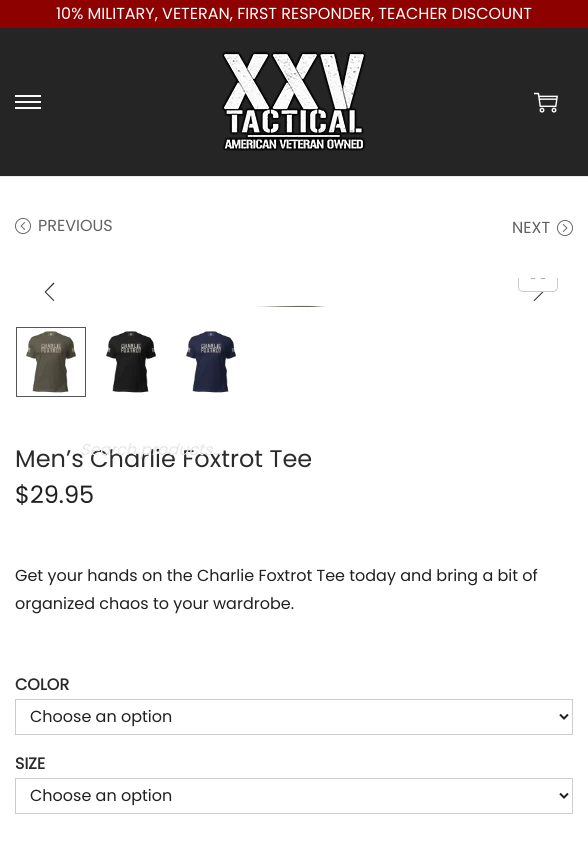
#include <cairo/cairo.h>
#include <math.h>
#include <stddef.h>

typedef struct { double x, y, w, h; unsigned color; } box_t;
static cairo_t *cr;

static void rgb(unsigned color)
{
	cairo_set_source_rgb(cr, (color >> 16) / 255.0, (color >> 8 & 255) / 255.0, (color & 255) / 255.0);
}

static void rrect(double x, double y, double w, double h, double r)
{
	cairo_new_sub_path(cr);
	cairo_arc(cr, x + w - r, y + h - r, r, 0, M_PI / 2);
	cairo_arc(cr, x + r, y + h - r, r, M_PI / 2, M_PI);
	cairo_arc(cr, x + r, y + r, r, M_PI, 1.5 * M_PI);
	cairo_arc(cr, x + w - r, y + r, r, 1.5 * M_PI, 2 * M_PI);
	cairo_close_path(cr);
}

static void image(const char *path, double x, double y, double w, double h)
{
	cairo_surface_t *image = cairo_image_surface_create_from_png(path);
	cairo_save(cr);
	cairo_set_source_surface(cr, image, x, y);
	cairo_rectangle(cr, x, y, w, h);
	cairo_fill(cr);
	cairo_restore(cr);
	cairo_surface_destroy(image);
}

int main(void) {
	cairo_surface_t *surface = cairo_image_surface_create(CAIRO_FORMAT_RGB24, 588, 849);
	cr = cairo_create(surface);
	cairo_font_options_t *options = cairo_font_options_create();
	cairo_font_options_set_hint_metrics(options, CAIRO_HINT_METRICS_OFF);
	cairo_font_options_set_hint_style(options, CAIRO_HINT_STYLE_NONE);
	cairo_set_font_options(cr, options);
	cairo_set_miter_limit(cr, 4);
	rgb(0xffffff);
	cairo_paint(cr);
	{
		static const box_t items[] = {
			{0, 0, 588, 28, 0x8e0101},
			{0, 28, 588, 148, 0x252525},
			{0, 176, 588, 1, 0xeaeaea},
			{15, 101, 26, 2, 0xf9f9f9},
			{15, 95, 26, 2, 0xf9f9f9},
			{15, 107, 26, 2, 0xf9f9f9},
		};
		for (size_t i = 0; i < sizeof items / sizeof *items; i++) {
			rgb(items[i].color);
			cairo_rectangle(cr, items[i].x, items[i].y, items[i].w, items[i].h);
			cairo_fill(cr);
		}
	}
	image("img/1.png", 222, 51, 144, 100);
	image("img/2.png", 534, 92, 24, 21);
	image("img/3.png", 15, 218, 16, 16);
	image("img/4.png", 557, 220, 16, 16);
	rgb(0x333333);
	cairo_new_path(cr);
	cairo_move_to(cr, 543.5, 292);
	cairo_line_to(cr, 534.5, 301);
	cairo_line_to(cr, 533.5, 300.5);
	cairo_line_to(cr, 542, 292);
	cairo_line_to(cr, 533.5, 283.5);
	cairo_line_to(cr, 534.5, 282.5);
	cairo_close_path(cr);
	cairo_fill(cr);
	rgb(0xffffff);
	cairo_new_path(cr);
	cairo_move_to(cr, 518, 278);
	cairo_line_to(cr, 558, 278);
	cairo_line_to(cr, 558, 287);
	cairo_curve_to(cr, 558, 290, 556, 292, 553, 292);
	cairo_line_to(cr, 523, 292);
	cairo_curve_to(cr, 520, 292, 518, 290, 518, 287);
	cairo_close_path(cr);
	cairo_fill(cr);
	cairo_save(cr);
	cairo_rectangle(cr, 15, 278, 558, 29);
	cairo_clip(cr);
	rrect(518.5, 252.5, 39, 39, 4.5);
	rgb(0xcccccc);
	cairo_set_line_width(cr, 1);
	cairo_stroke(cr);
	cairo_restore(cr);
	image("img/5.png", 530, 278, 16, 2);
	rgb(0x333333);
	cairo_new_path(cr);
	cairo_move_to(cr, 46, 292);
	cairo_line_to(cr, 54.5, 300.5);
	cairo_line_to(cr, 53.5, 301);
	cairo_line_to(cr, 44.5, 292);
	cairo_line_to(cr, 53.5, 282.5);
	cairo_line_to(cr, 54.5, 283.5);
	cairo_close_path(cr);
	cairo_fill(cr);
	image("img/6.png", 255, 305, 72, 2);
	cairo_rectangle(cr, 16.5, 327.5, 69, 69);
	rgb(0x555555);
	cairo_set_line_width(cr, 1);
	cairo_stroke(cr);
	image("img/7.png", 26, 331, 51, 62);
	image("img/8.png", 106, 331, 50, 62);
	image("img/9.png", 186, 331, 50, 62);
	cairo_rectangle(cr, 15.5, 699.5, 557, 35);
	rgb(0xcccccc);
	cairo_stroke(cr);
	cairo_new_path(cr);
	cairo_move_to(cr, 560, 714.5);
	cairo_line_to(cr, 564, 718.5);
	cairo_line_to(cr, 568, 714.5);
	rgb(0x202020);
	cairo_set_line_width(cr, 2);
	cairo_stroke(cr);
	cairo_rectangle(cr, 15.5, 778.5, 557, 35);
	rgb(0xcccccc);
	cairo_set_line_width(cr, 1);
	cairo_stroke(cr);
	cairo_new_path(cr);
	cairo_move_to(cr, 560, 793.5);
	cairo_line_to(cr, 564, 797.5);
	cairo_line_to(cr, 568, 793.5);
	rgb(0x202020);
	cairo_set_line_width(cr, 2);
	cairo_stroke(cr);
	cairo_select_font_face(cr, "Poppins", CAIRO_FONT_SLANT_NORMAL, CAIRO_FONT_WEIGHT_NORMAL);
	cairo_set_font_size(cr, 16);
	rgb(0xffffff);
	cairo_move_to(cr, 56, 19);
	cairo_show_text(cr, "10% MILITARY, VETERAN, FIRST RESPONDER, TEACHER DISCOUNT");
	rgb(0x616161);
	cairo_move_to(cr, 38, 231);
	cairo_show_text(cr, "PREVIOUS");
	cairo_move_to(cr, 512, 233);
	cairo_show_text(cr, "NEXT");
	cairo_set_font_size(cr, 24);
	rgb(0x2b2b2b);
	cairo_move_to(cr, 15, 467);
	cairo_show_text(cr, "Men’s Charlie Foxtrot Tee");
	rgb(0x202020);
	cairo_move_to(cr, 15, 503);
	cairo_show_text(cr, "$29.95");
	cairo_set_font_size(cr, 16);
	cairo_move_to(cr, 15, 581);
	cairo_show_text(cr, "Get your hands on the Charlie Foxtrot Tee today and bring a bit of");
	cairo_move_to(cr, 15, 609);
	cairo_show_text(cr, "organized chaos to your wardrobe.");
	cairo_select_font_face(cr, "Poppins", CAIRO_FONT_SLANT_NORMAL, CAIRO_FONT_WEIGHT_BOLD);
	rgb(0x2b2b2b);
	cairo_move_to(cr, 15, 690);
	cairo_show_text(cr, "COLOR");
	cairo_select_font_face(cr, "Poppins", CAIRO_FONT_SLANT_NORMAL, CAIRO_FONT_WEIGHT_NORMAL);
	rgb(0x202020);
	cairo_move_to(cr, 30, 722);
	cairo_show_text(cr, "Choose an option");
	cairo_select_font_face(cr, "Poppins", CAIRO_FONT_SLANT_NORMAL, CAIRO_FONT_WEIGHT_BOLD);
	rgb(0x2b2b2b);
	cairo_move_to(cr, 15, 769);
	cairo_show_text(cr, "SIZE");
	cairo_select_font_face(cr, "Poppins", CAIRO_FONT_SLANT_NORMAL, CAIRO_FONT_WEIGHT_NORMAL);
	rgb(0x202020);
	cairo_move_to(cr, 30, 801);
	cairo_show_text(cr, "Choose an option");
	cairo_select_font_face(cr, "Poppins", CAIRO_FONT_SLANT_ITALIC, CAIRO_FONT_WEIGHT_NORMAL);
	rgb(0xe7e7e7);
	cairo_move_to(cr, 80, 455);
	cairo_show_text(cr, "Search products…");
	cairo_surface_write_to_png(surface, "page.png");
	cairo_font_options_destroy(options);
	cairo_destroy(cr);
	cairo_surface_destroy(surface);
	return 0;
}
